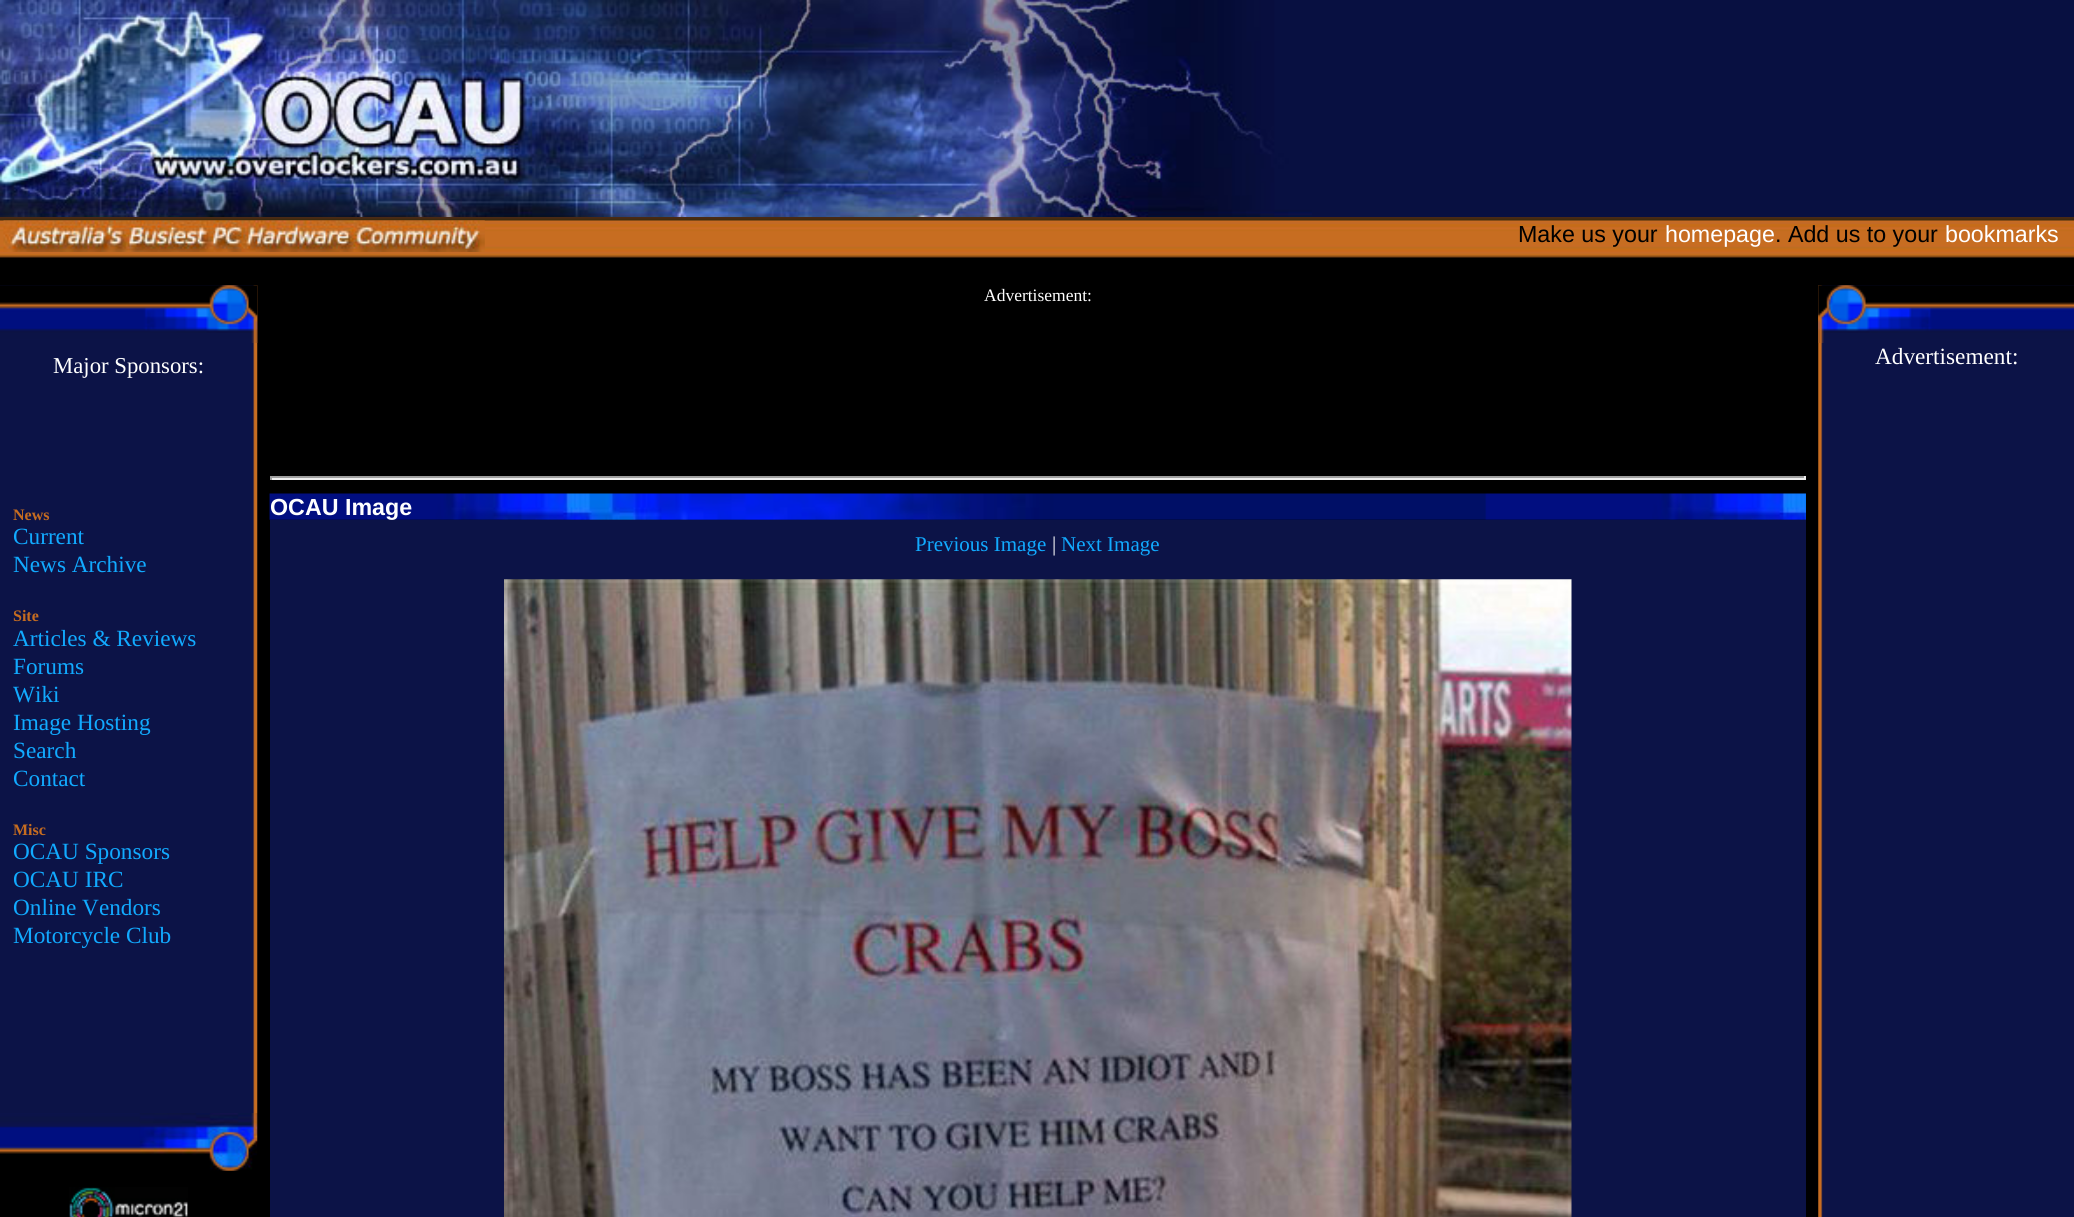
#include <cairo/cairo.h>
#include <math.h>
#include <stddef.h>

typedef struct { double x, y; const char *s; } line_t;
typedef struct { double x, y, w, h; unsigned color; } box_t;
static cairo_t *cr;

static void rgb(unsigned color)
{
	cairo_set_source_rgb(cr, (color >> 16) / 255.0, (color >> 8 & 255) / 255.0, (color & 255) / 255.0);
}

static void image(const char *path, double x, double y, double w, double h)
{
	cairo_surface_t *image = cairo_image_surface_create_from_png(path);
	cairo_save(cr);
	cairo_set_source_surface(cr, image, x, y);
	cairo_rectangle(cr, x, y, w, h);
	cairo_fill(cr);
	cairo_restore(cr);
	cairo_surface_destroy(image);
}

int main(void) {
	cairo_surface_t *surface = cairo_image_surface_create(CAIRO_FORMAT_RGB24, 2074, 1217);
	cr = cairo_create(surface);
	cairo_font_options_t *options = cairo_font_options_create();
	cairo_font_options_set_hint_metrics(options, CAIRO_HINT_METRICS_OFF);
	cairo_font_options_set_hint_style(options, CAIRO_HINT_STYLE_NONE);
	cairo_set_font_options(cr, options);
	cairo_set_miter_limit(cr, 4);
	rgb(0x000000);
	cairo_paint(cr);
	rgb(0x081041);
	cairo_rectangle(cr, 1312, 0, 762, 217);
	cairo_fill(cr);
	image("img/1.png", 0, 0, 1312, 217);
	image("img/2.png", 39, 55, 502, 116);
	image("img/3.png", 0, 217, 2074, 41);
	image("img/4.png", 3, 220, 482, 32);
	image("img/5.png", 0, 285, 258, 828);
	image("img/6.png", 0, 285, 258, 58);
	image("img/7.png", 0, 1113, 258, 58);
	image("img/8.png", 69, 1187, 119, 30);
	{
		static const box_t items[] = {
			{270, 476, 1536, 2, 0x9f9f9f},
			{1804, 476, 2, 4, 0xeeeeee},
			{270, 478, 1536, 2, 0xeeeeee},
			{270, 476, 2, 4, 0x9f9f9f},
		};
		for (size_t i = 0; i < sizeof items / sizeof *items; i++) {
			rgb(items[i].color);
			cairo_rectangle(cr, items[i].x, items[i].y, items[i].w, items[i].h);
			cairo_fill(cr);
		}
	}
	image("img/9.png", 269, 493, 1537, 27);
	rgb(0x0c1347);
	cairo_rectangle(cr, 270, 520, 1536, 697);
	cairo_fill(cr);
	image("img/10.png", 504, 579, 1068, 638);
	image("img/11.png", 1818, 285, 256, 932);
	image("img/12.png", 1818, 285, 256, 58);
	cairo_select_font_face(cr, "Liberation Sans", CAIRO_FONT_SLANT_NORMAL, CAIRO_FONT_WEIGHT_NORMAL);
	cairo_set_font_size(cr, 23.25);
	rgb(0x000000);
	cairo_move_to(cr, 1518, 242);
	cairo_show_text(cr, "Make us your");
	rgb(0xffffff);
	cairo_move_to(cr, 1665, 242);
	cairo_show_text(cr, "homepage");
	rgb(0x000000);
	cairo_move_to(cr, 1775, 242);
	cairo_show_text(cr, ". Add us to your");
	rgb(0xffffff);
	cairo_move_to(cr, 1945, 242);
	cairo_show_text(cr, "bookmarks");
	cairo_select_font_face(cr, "Liberation Serif", CAIRO_FONT_SLANT_NORMAL, CAIRO_FONT_WEIGHT_NORMAL);
	cairo_set_font_size(cr, 22.75);
	cairo_move_to(cr, 53, 373);
	cairo_show_text(cr, "Major Sponsors:");
	cairo_select_font_face(cr, "Liberation Serif", CAIRO_FONT_SLANT_NORMAL, CAIRO_FONT_WEIGHT_BOLD);
	cairo_set_font_size(cr, 16);
	rgb(0xc66c20);
	cairo_move_to(cr, 13, 520);
	cairo_show_text(cr, "News");
	cairo_select_font_face(cr, "Liberation Serif", CAIRO_FONT_SLANT_NORMAL, CAIRO_FONT_WEIGHT_NORMAL);
	cairo_set_font_size(cr, 23.25);
	rgb(0x11aaff);
	cairo_move_to(cr, 13, 544);
	cairo_show_text(cr, "Current");
	cairo_move_to(cr, 13, 572);
	cairo_show_text(cr, "News Archive");
	cairo_select_font_face(cr, "Liberation Serif", CAIRO_FONT_SLANT_NORMAL, CAIRO_FONT_WEIGHT_BOLD);
	cairo_set_font_size(cr, 16);
	rgb(0xc66c20);
	cairo_move_to(cr, 13, 621);
	cairo_show_text(cr, "Site");
	cairo_select_font_face(cr, "Liberation Serif", CAIRO_FONT_SLANT_NORMAL, CAIRO_FONT_WEIGHT_NORMAL);
	cairo_set_font_size(cr, 23.25);
	rgb(0x11aaff);
	{
		static const line_t items[] = {
			{13, 646, "Articles & Reviews"},
			{13, 674, "Forums"},
			{13, 702, "Wiki"},
			{13, 730, "Image Hosting"},
			{13, 758, "Search"},
			{13, 786, "Contact"},
		};
		for (size_t i = 0; i < sizeof items / sizeof *items; i++) {
			cairo_move_to(cr, items[i].x, items[i].y);
			cairo_show_text(cr, items[i].s);
		}
	}
	cairo_select_font_face(cr, "Liberation Serif", CAIRO_FONT_SLANT_NORMAL, CAIRO_FONT_WEIGHT_BOLD);
	cairo_set_font_size(cr, 16);
	rgb(0xc66c20);
	cairo_move_to(cr, 13, 835);
	cairo_show_text(cr, "Misc");
	cairo_select_font_face(cr, "Liberation Serif", CAIRO_FONT_SLANT_NORMAL, CAIRO_FONT_WEIGHT_NORMAL);
	cairo_set_font_size(cr, 23.25);
	rgb(0x11aaff);
	{
		static const line_t items[] = {
			{13, 859, "OCAU Sponsors"},
			{13, 887, "OCAU IRC"},
			{13, 915, "Online Vendors"},
			{13, 943, "Motorcycle Club"},
		};
		for (size_t i = 0; i < sizeof items / sizeof *items; i++) {
			cairo_move_to(cr, items[i].x, items[i].y);
			cairo_show_text(cr, items[i].s);
		}
	}
	cairo_set_font_size(cr, 17.5);
	rgb(0xffffff);
	cairo_move_to(cr, 984, 301);
	cairo_show_text(cr, "Advertisement:");
	cairo_select_font_face(cr, "Liberation Sans", CAIRO_FONT_SLANT_NORMAL, CAIRO_FONT_WEIGHT_BOLD);
	cairo_set_font_size(cr, 23.25);
	cairo_move_to(cr, 270, 515);
	cairo_show_text(cr, "OCAU Image");
	cairo_select_font_face(cr, "Liberation Serif", CAIRO_FONT_SLANT_NORMAL, CAIRO_FONT_WEIGHT_NORMAL);
	cairo_set_font_size(cr, 21);
	rgb(0x11aaff);
	cairo_move_to(cr, 915, 551);
	cairo_show_text(cr, "Previous Image");
	rgb(0xffffff);
	cairo_move_to(cr, 1052, 551);
	cairo_show_text(cr, "|");
	rgb(0x11aaff);
	cairo_move_to(cr, 1061, 551);
	cairo_show_text(cr, "Next Image");
	cairo_set_font_size(cr, 23.25);
	rgb(0xffffff);
	cairo_move_to(cr, 1875, 364);
	cairo_show_text(cr, "Advertisement:");
	cairo_surface_write_to_png(surface, "page.png");
	cairo_font_options_destroy(options);
	cairo_destroy(cr);
	cairo_surface_destroy(surface);
	return 0;
}
